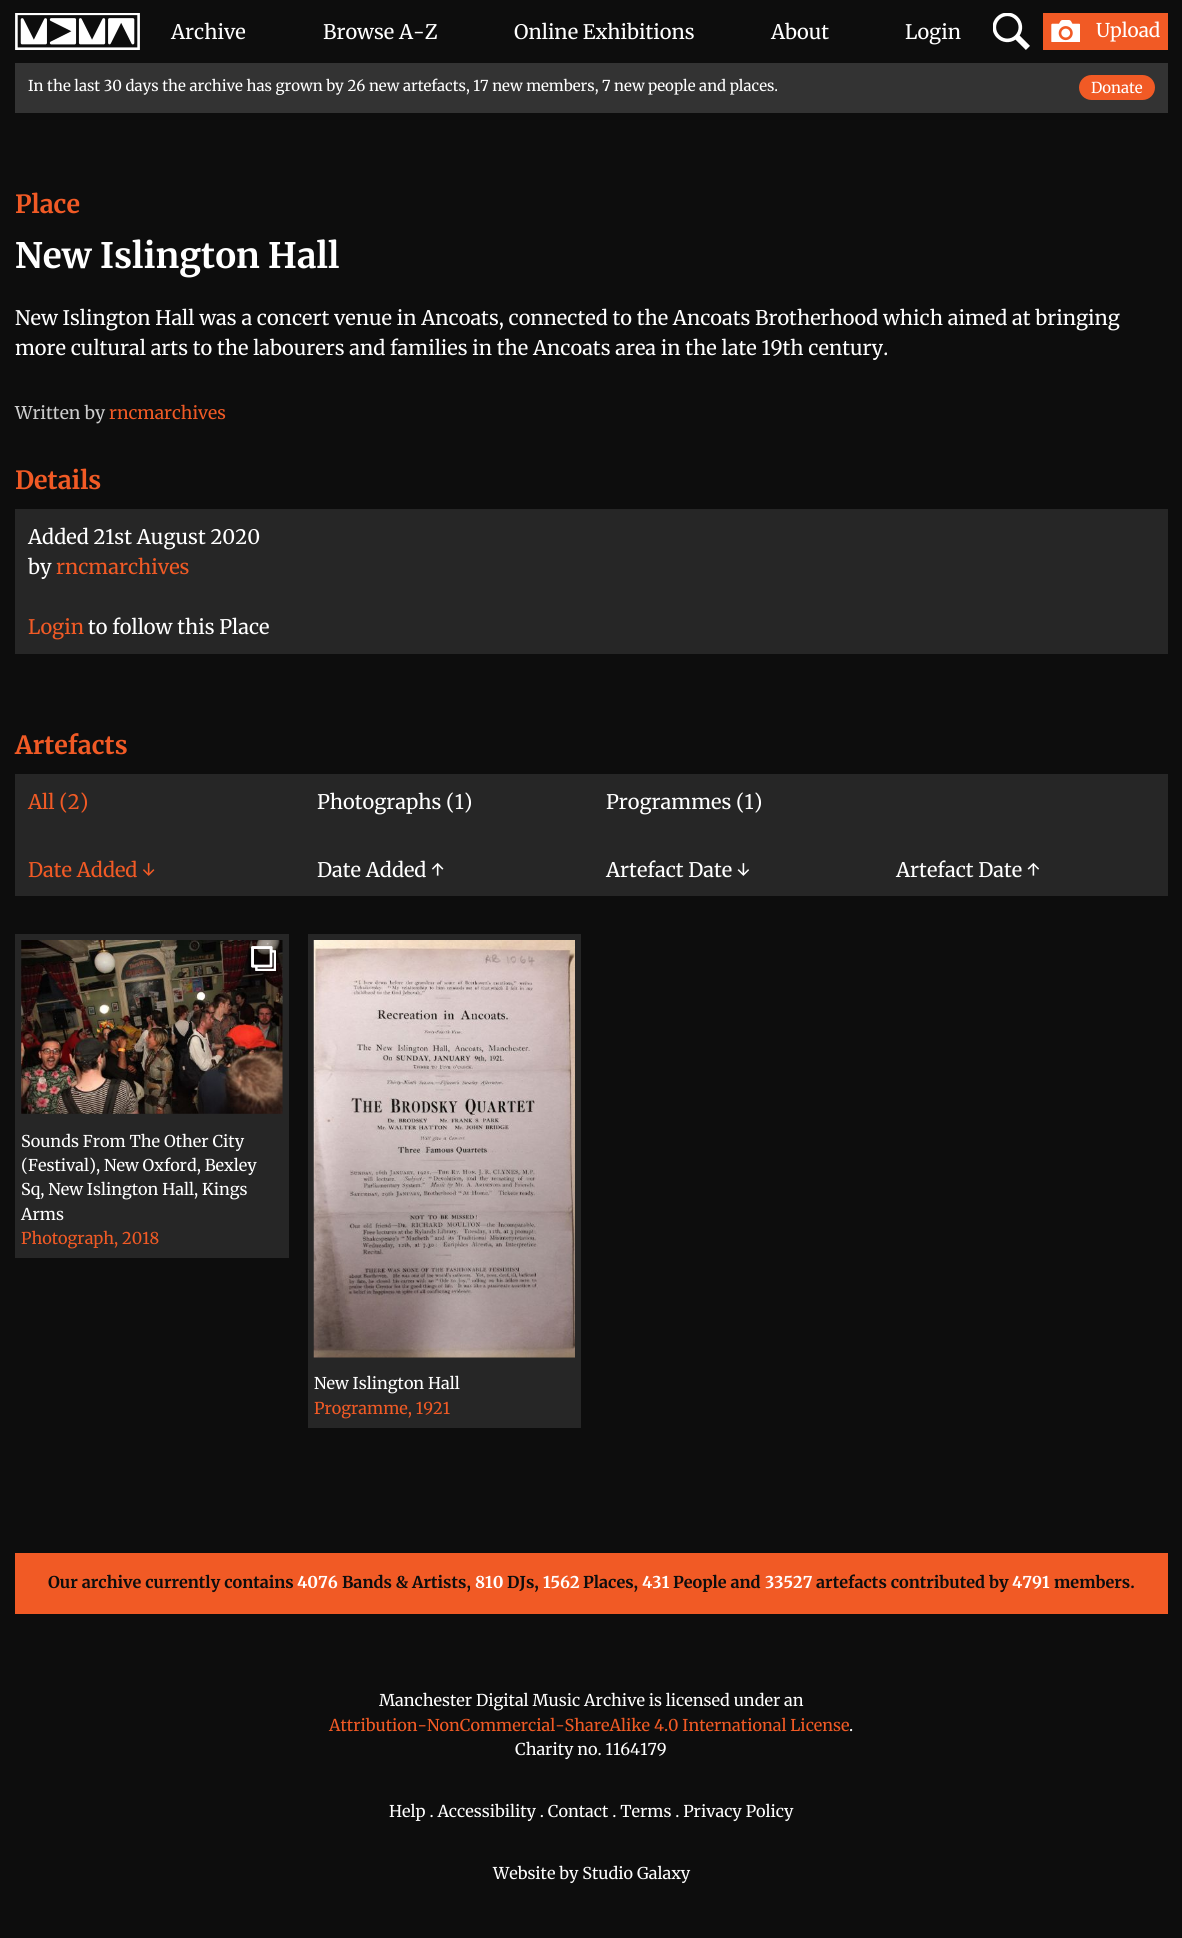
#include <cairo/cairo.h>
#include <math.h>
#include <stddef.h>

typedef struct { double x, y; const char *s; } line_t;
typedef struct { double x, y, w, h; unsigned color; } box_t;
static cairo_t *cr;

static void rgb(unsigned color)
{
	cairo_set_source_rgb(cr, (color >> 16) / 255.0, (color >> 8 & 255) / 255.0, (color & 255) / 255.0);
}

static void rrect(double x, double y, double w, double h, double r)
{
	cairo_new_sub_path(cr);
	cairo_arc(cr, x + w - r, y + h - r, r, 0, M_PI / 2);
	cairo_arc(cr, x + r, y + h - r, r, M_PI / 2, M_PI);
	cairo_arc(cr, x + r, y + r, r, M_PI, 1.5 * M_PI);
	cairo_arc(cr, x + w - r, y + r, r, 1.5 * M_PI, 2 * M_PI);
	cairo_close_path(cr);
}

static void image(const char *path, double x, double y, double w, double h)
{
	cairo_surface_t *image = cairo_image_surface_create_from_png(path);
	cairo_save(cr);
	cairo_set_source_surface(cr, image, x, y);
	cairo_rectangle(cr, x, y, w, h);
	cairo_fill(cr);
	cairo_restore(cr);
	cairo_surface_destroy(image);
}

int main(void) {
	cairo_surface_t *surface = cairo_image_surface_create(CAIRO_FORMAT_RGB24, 1182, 1938);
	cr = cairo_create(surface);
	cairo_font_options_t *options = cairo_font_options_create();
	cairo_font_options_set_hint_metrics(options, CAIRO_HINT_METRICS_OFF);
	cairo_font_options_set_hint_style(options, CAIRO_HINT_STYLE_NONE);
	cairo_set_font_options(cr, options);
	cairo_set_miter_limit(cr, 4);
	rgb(0x0d0d0d);
	cairo_paint(cr);
	image("img/1.png", 15, 13, 125, 37);
	image("img/2.png", 993, 13, 37, 37);
	rgb(0xf15a25);
	cairo_rectangle(cr, 1043, 13, 125, 37);
	cairo_fill(cr);
	image("img/3.png", 1051, 20, 29, 22);
	rgb(0x333333);
	cairo_rectangle(cr, 15, 63, 1153, 50);
	cairo_fill(cr);
	rgb(0xf15a25);
	rrect(1079, 75, 76, 25, 12.5);
	cairo_fill(cr);
	{
		static const box_t items[] = {
			{15, 509, 1153, 145, 0x262626},
			{15, 774, 1153, 122, 0x262626},
			{15, 934, 274, 324, 0x262626},
		};
		for (size_t i = 0; i < sizeof items / sizeof *items; i++) {
			rgb(items[i].color);
			cairo_rectangle(cr, items[i].x, items[i].y, items[i].w, items[i].h);
			cairo_fill(cr);
		}
	}
	image("img/4.png", 21, 940, 262, 174);
	image("img/5.png", 251, 946, 25, 25);
	cairo_rectangle(cr, 308, 934, 273, 494);
	cairo_fill(cr);
	image("img/6.png", 313, 940, 262, 418);
	rgb(0xf15a25);
	cairo_rectangle(cr, 15, 1553, 1153, 61);
	cairo_fill(cr);
	cairo_select_font_face(cr, "Merriweather", CAIRO_FONT_SLANT_NORMAL, CAIRO_FONT_WEIGHT_NORMAL);
	cairo_set_font_size(cr, 20);
	rgb(0xffffff);
	{
		static const line_t items[] = {
			{171, 39, "Archive"},
			{323, 39, "Browse A-Z"},
			{514, 39, "Online Exhibitions"},
			{771, 39, "About"},
			{905, 39, "Login"},
		};
		for (size_t i = 0; i < sizeof items / sizeof *items; i++) {
			cairo_move_to(cr, items[i].x, items[i].y);
			cairo_show_text(cr, items[i].s);
		}
	}
	cairo_set_font_size(cr, 19);
	cairo_move_to(cr, 1096, 37);
	cairo_show_text(cr, "Upload");
	cairo_set_font_size(cr, 15);
	cairo_move_to(cr, 28, 91);
	cairo_show_text(cr, "In the last 30 days the archive has grown by 26 new artefacts, 17 new members, 7 new people and places.");
	cairo_move_to(cr, 1091, 93);
	cairo_show_text(cr, "Donate");
	cairo_select_font_face(cr, "Merriweather", CAIRO_FONT_SLANT_NORMAL, CAIRO_FONT_WEIGHT_BOLD);
	cairo_set_font_size(cr, 25);
	rgb(0xf15a25);
	cairo_move_to(cr, 15, 213);
	cairo_show_text(cr, "Place");
	cairo_set_font_size(cr, 35);
	rgb(0xffffff);
	cairo_move_to(cr, 15, 268);
	cairo_show_text(cr, "New Islington Hall");
	cairo_select_font_face(cr, "Merriweather", CAIRO_FONT_SLANT_NORMAL, CAIRO_FONT_WEIGHT_NORMAL);
	cairo_set_font_size(cr, 20);
	cairo_move_to(cr, 15, 325);
	cairo_show_text(cr, "New Islington Hall was a concert venue in Ancoats, connected to the Ancoats Brotherhood which aimed at bringing");
	cairo_move_to(cr, 15, 355);
	cairo_show_text(cr, "more cultural arts to the labourers and families in the Ancoats area in the late 19th century.");
	cairo_set_font_size(cr, 17.5);
	rgb(0xcccccc);
	cairo_move_to(cr, 15, 419);
	cairo_show_text(cr, "Written by");
	rgb(0xf15a25);
	cairo_move_to(cr, 109, 419);
	cairo_show_text(cr, "rncmarchives");
	cairo_select_font_face(cr, "Merriweather", CAIRO_FONT_SLANT_NORMAL, CAIRO_FONT_WEIGHT_BOLD);
	cairo_set_font_size(cr, 25);
	cairo_move_to(cr, 15, 489);
	cairo_show_text(cr, "Details");
	cairo_select_font_face(cr, "Merriweather", CAIRO_FONT_SLANT_NORMAL, CAIRO_FONT_WEIGHT_NORMAL);
	cairo_set_font_size(cr, 20);
	rgb(0xffffff);
	cairo_move_to(cr, 28, 544);
	cairo_show_text(cr, "Added 21st August 2020");
	cairo_move_to(cr, 28, 574);
	cairo_show_text(cr, "by");
	rgb(0xf15a25);
	cairo_move_to(cr, 56, 574);
	cairo_show_text(cr, "rncmarchives");
	cairo_move_to(cr, 28, 634);
	cairo_show_text(cr, "Login");
	rgb(0xffffff);
	cairo_move_to(cr, 88, 634);
	cairo_show_text(cr, "to follow this Place");
	cairo_select_font_face(cr, "Merriweather", CAIRO_FONT_SLANT_NORMAL, CAIRO_FONT_WEIGHT_BOLD);
	cairo_set_font_size(cr, 25);
	rgb(0xf15a25);
	cairo_move_to(cr, 15, 754);
	cairo_show_text(cr, "Artefacts");
	cairo_select_font_face(cr, "Merriweather", CAIRO_FONT_SLANT_NORMAL, CAIRO_FONT_WEIGHT_NORMAL);
	cairo_set_font_size(cr, 20);
	cairo_move_to(cr, 28, 809);
	cairo_show_text(cr, "All (2)");
	rgb(0xffffff);
	cairo_move_to(cr, 317, 809);
	cairo_show_text(cr, "Photographs (1)");
	cairo_move_to(cr, 606, 809);
	cairo_show_text(cr, "Programmes (1)");
	rgb(0xf15a25);
	cairo_move_to(cr, 28, 877);
	cairo_show_text(cr, "Date Added ↓");
	rgb(0xffffff);
	{
		static const line_t items[] = {
			{317, 877, "Date Added ↑"},
			{606, 877, "Artefact Date ↓"},
			{896, 877, "Artefact Date ↑"},
		};
		for (size_t i = 0; i < sizeof items / sizeof *items; i++) {
			cairo_move_to(cr, items[i].x, items[i].y);
			cairo_show_text(cr, items[i].s);
		}
	}
	cairo_set_font_size(cr, 16.25);
	{
		static const line_t items[] = {
			{21, 1147, "Sounds From The Other City"},
			{21, 1171, "(Festival), New Oxford, Bexley"},
			{21, 1195, "Sq, New Islington Hall, Kings"},
			{21, 1220, "Arms"},
		};
		for (size_t i = 0; i < sizeof items / sizeof *items; i++) {
			cairo_move_to(cr, items[i].x, items[i].y);
			cairo_show_text(cr, items[i].s);
		}
	}
	rgb(0xf15a25);
	cairo_move_to(cr, 21, 1244);
	cairo_show_text(cr, "Photograph, 2018");
	rgb(0xffffff);
	cairo_move_to(cr, 314, 1389);
	cairo_show_text(cr, "New Islington Hall");
	rgb(0xf15a25);
	cairo_move_to(cr, 314, 1414);
	cairo_show_text(cr, "Programme, 1921");
	cairo_select_font_face(cr, "Merriweather", CAIRO_FONT_SLANT_NORMAL, CAIRO_FONT_WEIGHT_BOLD);
	rgb(0x0d0d0d);
	cairo_move_to(cr, 48, 1588);
	cairo_show_text(cr, "Our archive currently contains");
	rgb(0xffffff);
	cairo_move_to(cr, 297, 1588);
	cairo_show_text(cr, "4076");
	rgb(0x0d0d0d);
	cairo_move_to(cr, 342, 1588);
	cairo_show_text(cr, "Bands & Artists,");
	rgb(0xffffff);
	cairo_move_to(cr, 475, 1588);
	cairo_show_text(cr, "810");
	rgb(0x0d0d0d);
	cairo_move_to(cr, 507, 1588);
	cairo_show_text(cr, "DJs,");
	rgb(0xffffff);
	cairo_move_to(cr, 543, 1588);
	cairo_show_text(cr, "1562");
	rgb(0x0d0d0d);
	cairo_move_to(cr, 583, 1588);
	cairo_show_text(cr, "Places,");
	rgb(0xffffff);
	cairo_move_to(cr, 642, 1588);
	cairo_show_text(cr, "431");
	rgb(0x0d0d0d);
	cairo_move_to(cr, 673, 1588);
	cairo_show_text(cr, "People and");
	rgb(0xffffff);
	cairo_move_to(cr, 765, 1588);
	cairo_show_text(cr, "33527");
	rgb(0x0d0d0d);
	cairo_move_to(cr, 816, 1588);
	cairo_show_text(cr, "artefacts contributed by");
	rgb(0xffffff);
	cairo_move_to(cr, 1012, 1588);
	cairo_show_text(cr, "4791");
	rgb(0x0d0d0d);
	cairo_move_to(cr, 1054, 1588);
	cairo_show_text(cr, "members.");
	cairo_select_font_face(cr, "Merriweather", CAIRO_FONT_SLANT_NORMAL, CAIRO_FONT_WEIGHT_NORMAL);
	rgb(0xffffff);
	cairo_move_to(cr, 379, 1706);
	cairo_show_text(cr, "Manchester Digital Music Archive is licensed under an");
	rgb(0xf15a25);
	cairo_move_to(cr, 329, 1731);
	cairo_show_text(cr, "Attribution-NonCommercial-ShareAlike 4.0 International License");
	rgb(0xffffff);
	{
		static const line_t items[] = {
			{849, 1731, "."},
			{515, 1755, "Charity no. 1164179"},
			{389, 1817, "Help . Accessibility . Contact . Terms . Privacy Policy"},
			{493, 1879, "Website by Studio Galaxy"},
		};
		for (size_t i = 0; i < sizeof items / sizeof *items; i++) {
			cairo_move_to(cr, items[i].x, items[i].y);
			cairo_show_text(cr, items[i].s);
		}
	}
	cairo_surface_write_to_png(surface, "page.png");
	cairo_font_options_destroy(options);
	cairo_destroy(cr);
	cairo_surface_destroy(surface);
	return 0;
}
